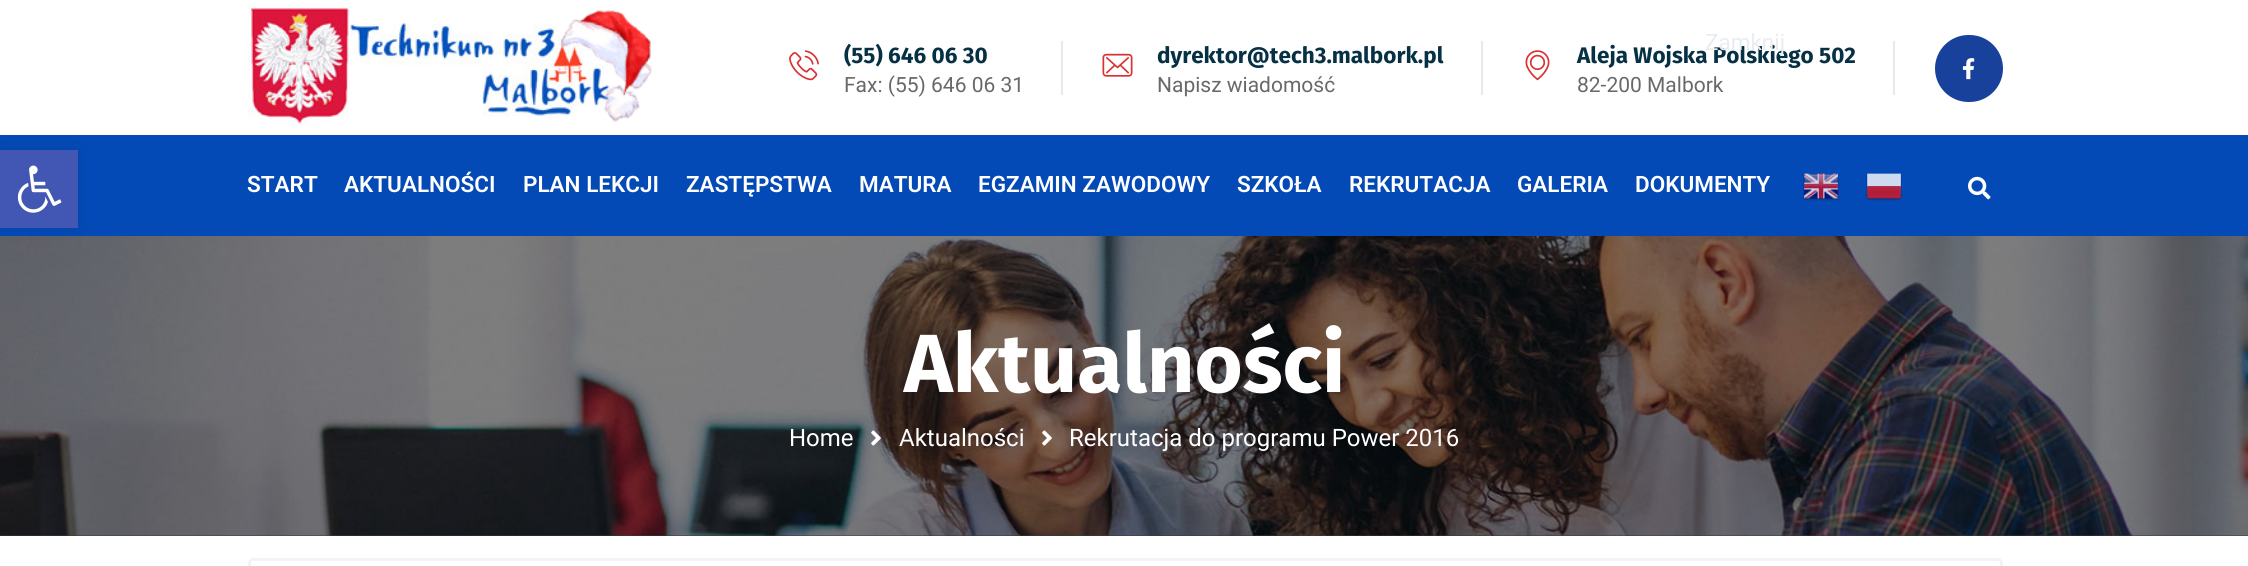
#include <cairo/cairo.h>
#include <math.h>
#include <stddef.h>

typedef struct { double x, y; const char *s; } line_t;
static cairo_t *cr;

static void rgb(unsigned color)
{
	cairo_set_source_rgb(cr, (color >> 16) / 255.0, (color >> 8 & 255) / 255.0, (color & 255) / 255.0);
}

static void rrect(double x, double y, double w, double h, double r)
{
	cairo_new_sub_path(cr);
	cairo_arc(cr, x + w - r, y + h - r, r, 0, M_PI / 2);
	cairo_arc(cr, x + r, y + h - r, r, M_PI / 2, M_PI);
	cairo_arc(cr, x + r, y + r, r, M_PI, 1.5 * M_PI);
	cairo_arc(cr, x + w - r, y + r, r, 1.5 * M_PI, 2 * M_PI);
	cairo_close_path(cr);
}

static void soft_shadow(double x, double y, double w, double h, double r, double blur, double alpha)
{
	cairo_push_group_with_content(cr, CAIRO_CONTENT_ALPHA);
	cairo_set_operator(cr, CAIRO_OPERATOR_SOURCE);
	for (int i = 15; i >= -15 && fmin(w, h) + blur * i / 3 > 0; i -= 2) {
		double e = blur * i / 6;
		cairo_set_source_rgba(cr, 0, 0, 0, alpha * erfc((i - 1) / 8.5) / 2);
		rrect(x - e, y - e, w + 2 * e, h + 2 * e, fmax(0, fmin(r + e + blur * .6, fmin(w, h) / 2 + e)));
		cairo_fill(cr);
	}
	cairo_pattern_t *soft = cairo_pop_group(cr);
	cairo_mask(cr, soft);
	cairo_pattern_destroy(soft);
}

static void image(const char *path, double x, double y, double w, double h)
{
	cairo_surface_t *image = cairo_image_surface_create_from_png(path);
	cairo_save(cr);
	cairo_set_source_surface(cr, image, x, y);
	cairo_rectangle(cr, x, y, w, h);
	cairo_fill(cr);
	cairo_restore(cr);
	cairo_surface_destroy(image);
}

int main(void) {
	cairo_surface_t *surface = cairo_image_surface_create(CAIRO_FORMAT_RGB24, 2248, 566);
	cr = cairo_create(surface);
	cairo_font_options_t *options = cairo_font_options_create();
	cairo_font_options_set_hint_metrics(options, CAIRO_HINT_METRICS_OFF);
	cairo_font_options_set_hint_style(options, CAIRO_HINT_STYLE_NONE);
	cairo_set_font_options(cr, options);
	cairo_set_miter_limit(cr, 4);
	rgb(0xffffff);
	cairo_paint(cr);
	rgb(0x034ab7);
	cairo_rectangle(cr, 0, 135, 2248, 101);
	cairo_fill(cr);
	rgb(0x363c42);
	cairo_rectangle(cr, 0, 535, 2248, 1);
	cairo_fill(cr);
	image("img/10.png", 0, 236, 2248, 300);
	rgb(0x030303);
	soft_shadow(0, 150, 78, 78, 0, 7.5, 0.1);
	rgb(0x4256b3);
	cairo_rectangle(cr, 0, 150, 78, 78);
	cairo_fill(cr);
	image("img/1.png", 17, 165, 45, 48);
	image("img/2.png", 247, 3, 405, 124);
	image("img/3.png", 789, 50, 30, 31);
	rgb(0xe6eaec);
	cairo_rectangle(cr, 1061, 41, 2, 54);
	cairo_fill(cr);
	image("img/4.png", 1102, 53, 31, 24);
	cairo_rectangle(cr, 1481, 41, 2, 54);
	cairo_fill(cr);
	image("img/5.png", 1525, 50, 25, 31);
	cairo_rectangle(cr, 1893, 41, 2, 54);
	cairo_fill(cr);
	rgb(0x17419a);
	rrect(1935, 35, 68, 67, 33.5);
	cairo_fill(cr);
	image("img/6.png", 1962, 58, 13, 22);
	image("img/7.png", 1803, 173, 36, 28);
	image("img/8.png", 1866, 173, 36, 28);
	image("img/9.png", 1968, 176, 23, 24);
	image("img/11.png", 871, 430, 10, 16);
	image("img/12.png", 1042, 430, 10, 16);
	rrect(249.5, 559.5, 1752, 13, 3.5);
	rgb(0xf3f3f3);
	cairo_set_line_width(cr, 3);
	cairo_stroke(cr);
	cairo_select_font_face(cr, "Fira Sans", CAIRO_FONT_SLANT_NORMAL, CAIRO_FONT_WEIGHT_BOLD);
	cairo_set_font_size(cr, 22.5);
	rgb(0x063044);
	cairo_move_to(cr, 844, 63);
	cairo_show_text(cr, "(55) 646 06 30");
	cairo_select_font_face(cr, "Roboto", CAIRO_FONT_SLANT_NORMAL, CAIRO_FONT_WEIGHT_NORMAL);
	cairo_set_font_size(cr, 21);
	rgb(0x696969);
	cairo_move_to(cr, 844, 92);
	cairo_show_text(cr, "Fax: (55) 646 06 31");
	cairo_select_font_face(cr, "Fira Sans", CAIRO_FONT_SLANT_NORMAL, CAIRO_FONT_WEIGHT_BOLD);
	cairo_set_font_size(cr, 22.5);
	rgb(0x063044);
	cairo_move_to(cr, 1157, 63);
	cairo_show_text(cr, "dyrektor@tech3.malbork.pl");
	cairo_select_font_face(cr, "Roboto", CAIRO_FONT_SLANT_NORMAL, CAIRO_FONT_WEIGHT_NORMAL);
	cairo_set_font_size(cr, 21);
	rgb(0x696969);
	cairo_move_to(cr, 1157, 92);
	cairo_show_text(cr, "Napisz wiadomość");
	cairo_select_font_face(cr, "Fira Sans", CAIRO_FONT_SLANT_NORMAL, CAIRO_FONT_WEIGHT_BOLD);
	cairo_set_font_size(cr, 22.5);
	rgb(0x063044);
	cairo_move_to(cr, 1577, 63);
	cairo_show_text(cr, "Aleja Wojska Polskiego 502");
	cairo_select_font_face(cr, "Roboto", CAIRO_FONT_SLANT_NORMAL, CAIRO_FONT_WEIGHT_NORMAL);
	rgb(0xe9edef);
	cairo_move_to(cr, 1705, 50);
	cairo_show_text(cr, "Zamknij");
	cairo_set_font_size(cr, 21);
	rgb(0x696969);
	cairo_move_to(cr, 1577, 92);
	cairo_show_text(cr, "82-200 Malbork");
	cairo_select_font_face(cr, "Roboto SemiBold", CAIRO_FONT_SLANT_NORMAL, CAIRO_FONT_WEIGHT_NORMAL);
	cairo_set_font_size(cr, 22.5);
	rgb(0xffffff);
	{
		static const line_t items[] = {
			{247, 192, "START"},
			{344, 192, "AKTUALNOŚCI"},
			{523, 192, "PLAN LEKCJI"},
			{686, 192, "ZASTĘPSTWA"},
			{859, 192, "MATURA"},
			{978, 192, "EGZAMIN ZAWODOWY"},
			{1237, 192, "SZKOŁA"},
			{1349, 192, "REKRUTACJA"},
			{1517, 192, "GALERIA"},
			{1635, 192, "DOKUMENTY"},
		};
		for (size_t i = 0; i < sizeof items / sizeof *items; i++) {
			cairo_move_to(cr, items[i].x, items[i].y);
			cairo_show_text(cr, items[i].s);
		}
	}
	cairo_select_font_face(cr, "Fira Sans", CAIRO_FONT_SLANT_NORMAL, CAIRO_FONT_WEIGHT_BOLD);
	cairo_set_font_size(cr, 82.5);
	cairo_move_to(cr, 904, 392);
	cairo_show_text(cr, "Aktualności");
	cairo_select_font_face(cr, "Roboto", CAIRO_FONT_SLANT_NORMAL, CAIRO_FONT_WEIGHT_NORMAL);
	cairo_set_font_size(cr, 24);
	{
		static const line_t items[] = {
			{789, 446, "Home"},
			{899, 446, "Aktualności"},
			{1069, 446, "Rekrutacja do programu Power 2016"},
		};
		for (size_t i = 0; i < sizeof items / sizeof *items; i++) {
			cairo_move_to(cr, items[i].x, items[i].y);
			cairo_show_text(cr, items[i].s);
		}
	}
	cairo_surface_write_to_png(surface, "page.png");
	cairo_font_options_destroy(options);
	cairo_destroy(cr);
	cairo_surface_destroy(surface);
	return 0;
}
